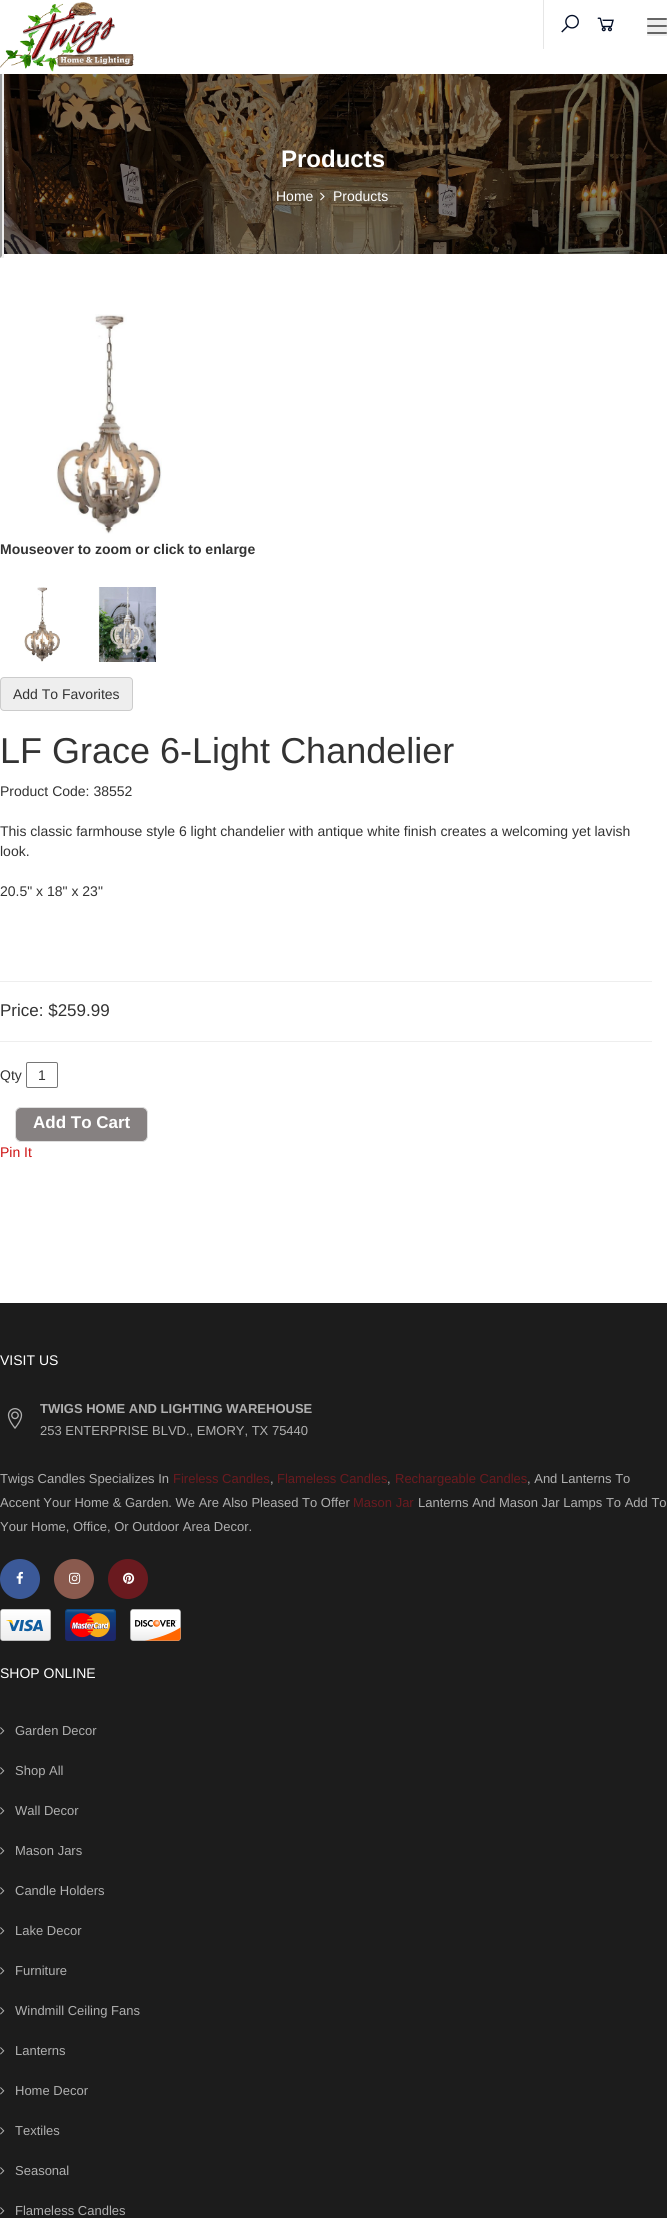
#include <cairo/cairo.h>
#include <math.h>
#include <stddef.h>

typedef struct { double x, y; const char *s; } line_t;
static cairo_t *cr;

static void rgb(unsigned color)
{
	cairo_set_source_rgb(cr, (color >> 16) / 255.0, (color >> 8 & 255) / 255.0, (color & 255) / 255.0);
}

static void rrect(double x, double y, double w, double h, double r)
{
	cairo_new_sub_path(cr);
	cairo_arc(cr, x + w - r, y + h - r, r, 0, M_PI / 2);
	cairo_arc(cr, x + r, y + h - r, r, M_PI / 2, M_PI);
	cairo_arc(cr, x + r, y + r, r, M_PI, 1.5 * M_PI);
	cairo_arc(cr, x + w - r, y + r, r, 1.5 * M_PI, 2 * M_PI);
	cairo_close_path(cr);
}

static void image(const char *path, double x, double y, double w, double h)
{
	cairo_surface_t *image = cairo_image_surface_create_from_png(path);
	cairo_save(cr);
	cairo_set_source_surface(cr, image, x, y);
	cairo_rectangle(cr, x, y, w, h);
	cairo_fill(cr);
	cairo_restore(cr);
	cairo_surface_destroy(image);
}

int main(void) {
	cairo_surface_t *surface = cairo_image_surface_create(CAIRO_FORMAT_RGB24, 667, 2218);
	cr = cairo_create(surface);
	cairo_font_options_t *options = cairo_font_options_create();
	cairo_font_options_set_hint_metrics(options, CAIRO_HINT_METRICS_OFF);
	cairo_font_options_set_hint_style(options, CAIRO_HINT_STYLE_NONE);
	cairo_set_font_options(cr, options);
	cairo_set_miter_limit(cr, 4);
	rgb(0xffffff);
	cairo_paint(cr);
	rgb(0xeeeeee);
	cairo_new_path(cr);
	cairo_move_to(cr, 4, -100);
	cairo_line_to(cr, 4, 258);
	cairo_line_to(cr, 2, 256);
	cairo_line_to(cr, 2, -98);
	cairo_close_path(cr);
	cairo_fill(cr);
	cairo_new_path(cr);
	cairo_move_to(cr, 4, 258);
	cairo_line_to(cr, 0, 258);
	cairo_line_to(cr, 2, 256);
	cairo_close_path(cr);
	cairo_fill(cr);
	rgb(0x9f9f9f);
	cairo_new_path(cr);
	cairo_move_to(cr, 0, 258);
	cairo_line_to(cr, 0, -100);
	cairo_line_to(cr, 2, -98);
	cairo_line_to(cr, 2, 256);
	cairo_close_path(cr);
	cairo_fill(cr);
	rgb(0xffffff);
	cairo_rectangle(cr, 0, 0, 4, 74);
	cairo_fill(cr);
	image("img/1.png", 0, 2, 134, 70);
	rgb(0xe6e6e6);
	cairo_rectangle(cr, 543, 0, 1, 49);
	cairo_fill(cr);
	image("img/2.png", 561, 14, 18, 19);
	image("img/3.png", 597, 17, 17, 15);
	rgb(0xefefef);
	cairo_rectangle(cr, 647, 18, 20, 18);
	cairo_fill(cr);
	rgb(0x666666);
	rrect(647, 18, 20, 2, 1);
	cairo_fill(cr);
	rrect(647, 25, 20, 2, 1);
	cairo_fill(cr);
	rrect(647, 32, 20, 2, 1);
	cairo_fill(cr);
	image("img/4.png", 4, 74, 663, 180);
	image("img/5.png", 320, 192, 5, 9);
	image("img/6.png", 56, 314, 106, 220);
	image("img/7.png", 24, 587, 36, 75);
	image("img/8.png", 98, 587, 59, 75);
	rgb(0xeeeeee);
	rrect(0.5, 677.5, 132, 33, 3.5);
	cairo_fill_preserve(cr);
	rgb(0xcccccc);
	cairo_set_line_width(cr, 1);
	cairo_stroke(cr);
	rgb(0xeeeeee);
	cairo_rectangle(cr, 0, 981, 652, 1);
	cairo_fill(cr);
	cairo_rectangle(cr, 0, 1041, 652, 1);
	cairo_fill(cr);
	rrect(26.5, 1062.5, 31, 25, 1.5);
	rgb(0x767676);
	cairo_stroke(cr);
	rgb(0x868181);
	rrect(15.5, 1107.5, 132, 34, 5.5);
	cairo_fill_preserve(cr);
	rgb(0xdfdfdf);
	cairo_stroke(cr);
	rgb(0x1c1c1c);
	cairo_rectangle(cr, 0, 1303, 667, 915);
	cairo_fill(cr);
	image("img/9.png", 7, 1408, 16, 21);
	rgb(0x3b5998);
	cairo_arc(cr, 20, 1579, 20, 0, 2 * M_PI);
	cairo_fill(cr);
	image("img/10.png", 16, 1571, 7, 13);
	rgb(0x8a5a4e);
	cairo_arc(cr, 74, 1579, 20, 0, 2 * M_PI);
	cairo_fill(cr);
	image("img/11.png", 69, 1572, 12, 12);
	rgb(0x6a1a1f);
	cairo_arc(cr, 128, 1579, 20, 0, 2 * M_PI);
	cairo_fill(cr);
	image("img/12.png", 123, 1572, 12, 12);
	image("img/13.png", 0, 1609, 51, 32);
	image("img/14.png", 65, 1609, 51, 32);
	image("img/15.png", 130, 1609, 51, 32);
	image("img/16.png", 0, 1727, 5, 8);
	image("img/16.png", 0, 1767, 5, 8);
	image("img/16.png", 0, 1807, 5, 8);
	image("img/16.png", 0, 1847, 5, 8);
	image("img/16.png", 0, 1887, 5, 8);
	image("img/16.png", 0, 1927, 5, 8);
	image("img/16.png", 0, 1967, 5, 8);
	image("img/16.png", 0, 2007, 5, 8);
	image("img/16.png", 0, 2047, 5, 8);
	image("img/16.png", 0, 2087, 5, 8);
	image("img/16.png", 0, 2127, 5, 8);
	image("img/16.png", 0, 2167, 5, 8);
	image("img/16.png", 0, 2207, 5, 8);
	cairo_select_font_face(cr, "Liberation Sans", CAIRO_FONT_SLANT_NORMAL, CAIRO_FONT_WEIGHT_BOLD);
	cairo_set_font_size(cr, 24);
	rgb(0xffffff);
	cairo_move_to(cr, 281, 167);
	cairo_show_text(cr, "Products");
	cairo_select_font_face(cr, "Liberation Sans", CAIRO_FONT_SLANT_NORMAL, CAIRO_FONT_WEIGHT_NORMAL);
	cairo_set_font_size(cr, 14);
	cairo_move_to(cr, 276, 201);
	cairo_show_text(cr, "Home");
	cairo_move_to(cr, 333, 201);
	cairo_show_text(cr, "Products");
	cairo_select_font_face(cr, "Liberation Sans", CAIRO_FONT_SLANT_NORMAL, CAIRO_FONT_WEIGHT_BOLD);
	rgb(0x333333);
	cairo_move_to(cr, 0, 554);
	cairo_show_text(cr, "Mouseover to zoom or click to enlarge");
	cairo_select_font_face(cr, "Liberation Sans", CAIRO_FONT_SLANT_NORMAL, CAIRO_FONT_WEIGHT_NORMAL);
	cairo_move_to(cr, 13, 699);
	cairo_show_text(cr, "Add To Favorites");
	cairo_set_font_size(cr, 36);
	cairo_move_to(cr, 0, 763);
	cairo_show_text(cr, "LF Grace 6-Light Chandelier");
	cairo_set_font_size(cr, 14);
	{
		static const line_t items[] = {
			{0, 796, "Product Code: 38552"},
			{0, 836, "This classic farmhouse style 6 light chandelier with antique white finish creates a welcoming yet lavish"},
			{0, 856, "look."},
			{0, 896, "20.5\" x 18\" x 23\""},
		};
		for (size_t i = 0; i < sizeof items / sizeof *items; i++) {
			cairo_move_to(cr, items[i].x, items[i].y);
			cairo_show_text(cr, items[i].s);
		}
	}
	cairo_set_font_size(cr, 17);
	cairo_move_to(cr, 0, 1016);
	cairo_show_text(cr, "Price: $259.99");
	cairo_set_font_size(cr, 14);
	cairo_move_to(cr, 0, 1080);
	cairo_show_text(cr, "Qty");
	cairo_move_to(cr, 38, 1080);
	cairo_show_text(cr, "1");
	cairo_select_font_face(cr, "Liberation Sans", CAIRO_FONT_SLANT_NORMAL, CAIRO_FONT_WEIGHT_BOLD);
	cairo_set_font_size(cr, 17);
	rgb(0xffffff);
	cairo_move_to(cr, 33, 1128);
	cairo_show_text(cr, "Add To Cart");
	cairo_select_font_face(cr, "Liberation Sans", CAIRO_FONT_SLANT_NORMAL, CAIRO_FONT_WEIGHT_NORMAL);
	cairo_set_font_size(cr, 14);
	rgb(0xce1313);
	cairo_move_to(cr, 0, 1157);
	cairo_show_text(cr, "Pin It");
	rgb(0xffffff);
	cairo_move_to(cr, 0, 1365);
	cairo_show_text(cr, "VISIT US");
	cairo_select_font_face(cr, "Liberation Sans", CAIRO_FONT_SLANT_NORMAL, CAIRO_FONT_WEIGHT_BOLD);
	cairo_set_font_size(cr, 13);
	rgb(0xb0b0b0);
	cairo_move_to(cr, 40, 1413);
	cairo_show_text(cr, "TWIGS HOME AND LIGHTING WAREHOUSE");
	cairo_select_font_face(cr, "Liberation Sans", CAIRO_FONT_SLANT_NORMAL, CAIRO_FONT_WEIGHT_NORMAL);
	cairo_move_to(cr, 40, 1435);
	cairo_show_text(cr, "253 ENTERPRISE BLVD., EMORY, TX 75440");
	cairo_move_to(cr, 0, 1483);
	cairo_show_text(cr, "Twigs Candles Specializes In");
	rgb(0x6a1a1f);
	cairo_move_to(cr, 173, 1483);
	cairo_show_text(cr, "Fireless Candles");
	rgb(0xb0b0b0);
	cairo_move_to(cr, 270, 1483);
	cairo_show_text(cr, ",");
	rgb(0x6a1a1f);
	cairo_move_to(cr, 277, 1483);
	cairo_show_text(cr, "Flameless Candles");
	rgb(0xb0b0b0);
	cairo_move_to(cr, 387, 1483);
	cairo_show_text(cr, ",");
	rgb(0x6a1a1f);
	cairo_move_to(cr, 395, 1483);
	cairo_show_text(cr, "Rechargeable Candles");
	rgb(0xb0b0b0);
	cairo_move_to(cr, 527, 1483);
	cairo_show_text(cr, ", And Lanterns To");
	cairo_move_to(cr, 0, 1507);
	cairo_show_text(cr, "Accent Your Home & Garden. We Are Also Pleased To Offer");
	rgb(0x6a1a1f);
	cairo_move_to(cr, 353, 1507);
	cairo_show_text(cr, "Mason Jar");
	rgb(0xb0b0b0);
	cairo_move_to(cr, 418, 1507);
	cairo_show_text(cr, "Lanterns And Mason Jar Lamps To Add To");
	cairo_move_to(cr, 0, 1531);
	cairo_show_text(cr, "Your Home, Office, Or Outdoor Area Decor.");
	cairo_set_font_size(cr, 14);
	rgb(0xffffff);
	cairo_move_to(cr, 0, 1678);
	cairo_show_text(cr, "SHOP ONLINE");
	cairo_set_font_size(cr, 13);
	rgb(0xb0b0b0);
	{
		static const line_t items[] = {
			{15, 1735, "Garden Decor"},
			{15, 1775, "Shop All"},
			{15, 1815, "Wall Decor"},
			{15, 1855, "Mason Jars"},
			{15, 1895, "Candle Holders"},
			{15, 1935, "Lake Decor"},
			{15, 1975, "Furniture"},
			{15, 2015, "Windmill Ceiling Fans"},
			{15, 2055, "Lanterns"},
			{15, 2095, "Home Decor"},
			{15, 2135, "Textiles"},
			{15, 2175, "Seasonal"},
			{15, 2215, "Flameless Candles"},
		};
		for (size_t i = 0; i < sizeof items / sizeof *items; i++) {
			cairo_move_to(cr, items[i].x, items[i].y);
			cairo_show_text(cr, items[i].s);
		}
	}
	cairo_surface_write_to_png(surface, "page.png");
	cairo_font_options_destroy(options);
	cairo_destroy(cr);
	cairo_surface_destroy(surface);
	return 0;
}
